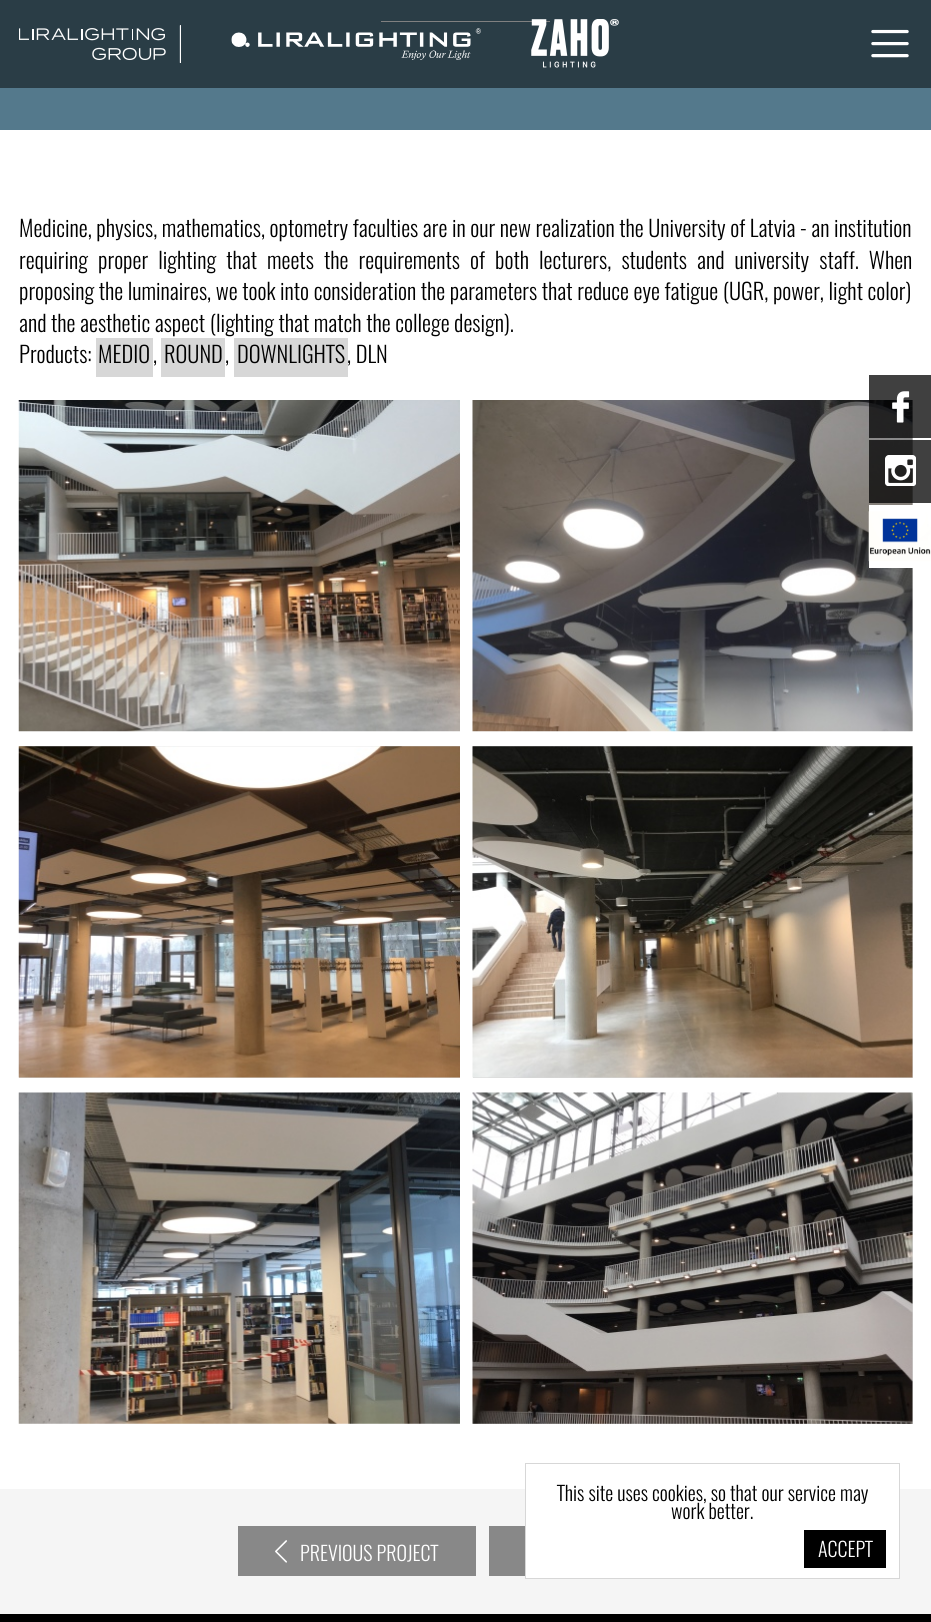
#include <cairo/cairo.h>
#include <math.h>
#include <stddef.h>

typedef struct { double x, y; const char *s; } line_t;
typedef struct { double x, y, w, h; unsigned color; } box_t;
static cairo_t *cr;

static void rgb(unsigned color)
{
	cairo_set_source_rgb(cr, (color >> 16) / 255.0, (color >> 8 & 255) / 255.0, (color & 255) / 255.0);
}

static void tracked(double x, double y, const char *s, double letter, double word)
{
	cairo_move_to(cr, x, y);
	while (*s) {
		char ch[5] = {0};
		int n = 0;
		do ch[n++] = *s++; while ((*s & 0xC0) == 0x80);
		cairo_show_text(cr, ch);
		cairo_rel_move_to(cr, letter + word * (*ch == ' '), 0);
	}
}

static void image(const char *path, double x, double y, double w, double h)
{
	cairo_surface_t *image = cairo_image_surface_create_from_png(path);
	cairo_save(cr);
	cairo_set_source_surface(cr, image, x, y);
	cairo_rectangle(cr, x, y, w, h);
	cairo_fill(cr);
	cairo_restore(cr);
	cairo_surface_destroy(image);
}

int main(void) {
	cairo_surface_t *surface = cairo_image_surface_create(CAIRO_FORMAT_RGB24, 931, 1622);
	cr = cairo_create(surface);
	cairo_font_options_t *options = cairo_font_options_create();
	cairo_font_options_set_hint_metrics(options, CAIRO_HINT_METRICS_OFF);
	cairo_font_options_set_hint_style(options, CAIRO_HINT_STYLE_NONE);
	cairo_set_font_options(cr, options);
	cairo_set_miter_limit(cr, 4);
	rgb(0xffffff);
	cairo_paint(cr);
	{
		static const box_t items[] = {
			{0, 88, 931, 42, 0x54798c},
			{0, 0, 931, 88, 0x2a3d46},
			{381, 21, 169, 1, 0x808080},
		};
		for (size_t i = 0; i < sizeof items / sizeof *items; i++) {
			rgb(items[i].color);
			cairo_rectangle(cr, items[i].x, items[i].y, items[i].w, items[i].h);
			cairo_fill(cr);
		}
	}
	image("img/1.png", 19, 25, 162, 38);
	image("img/2.png", 231, 28, 250, 32);
	image("img/3.png", 531, 19, 88, 49);
	image("img/4.png", 871, 29, 38, 29);
	{
		static const box_t items[] = {
			{96, 338, 57, 39, 0xd7d7d7},
			{161, 338, 64, 39, 0xd7d7d7},
			{234, 338, 114, 39, 0xd7d7d7},
		};
		for (size_t i = 0; i < sizeof items / sizeof *items; i++) {
			rgb(items[i].color);
			cairo_rectangle(cr, items[i].x, items[i].y, items[i].w, items[i].h);
			cairo_fill(cr);
		}
	}
	image("img/5.png", 18, 400, 442, 332);
	cairo_rectangle(cr, 912, 400, 1, 331);
	cairo_fill(cr);
	image("img/6.png", 472, 400, 441, 332);
	cairo_rectangle(cr, 19, 746, 441, 332);
	cairo_fill(cr);
	image("img/7.png", 18, 746, 442, 332);
	cairo_rectangle(cr, 473, 746, 440, 332);
	cairo_fill(cr);
	image("img/8.png", 472, 746, 441, 332);
	image("img/9.png", 18, 1092, 442, 332);
	cairo_rectangle(cr, 473, 1093, 440, 331);
	cairo_fill(cr);
	image("img/10.png", 472, 1092, 441, 332);
	rgb(0xf5f5f5);
	cairo_rectangle(cr, 0, 1489, 931, 125);
	cairo_fill(cr);
	rgb(0x888888);
	cairo_rectangle(cr, 238, 1526, 238, 50);
	cairo_fill(cr);
	image("img/11.png", 275, 1540, 12, 23);
	cairo_rectangle(cr, 489, 1526, 36, 50);
	cairo_fill(cr);
	cairo_set_source_rgba(cr, 0, 0, 0, 0.75);
	cairo_rectangle(cr, 869, 375, 62, 63);
	cairo_fill(cr);
	image("img/12.png", 892, 391, 18, 32);
	cairo_rectangle(cr, 869, 440, 62, 63);
	cairo_fill(cr);
	image("img/13.png", 885, 455, 31, 31);
	rgb(0xffffff);
	cairo_rectangle(cr, 869, 505, 44, 63);
	cairo_fill(cr);
	image("img/14.png", 868, 511, 63, 51);
	cairo_rectangle(cr, 526, 1489, 373, 89);
	cairo_fill(cr);
	cairo_rectangle(cr, 525.5, 1463.5, 374, 115);
	rgb(0xd7d7d7);
	cairo_set_line_width(cr, 1);
	cairo_stroke(cr);
	rgb(0x000000);
	cairo_rectangle(cr, 804, 1530, 82, 38);
	cairo_fill(cr);
	cairo_rectangle(cr, 0, 1614, 931, 8);
	cairo_fill(cr);
	cairo_select_font_face(cr, "Oswald Light", CAIRO_FONT_SLANT_NORMAL, CAIRO_FONT_WEIGHT_NORMAL);
	cairo_set_font_size(cr, 22.5);
	cairo_move_to(cr, 19, 237);
	cairo_show_text(cr, "Medicine, physics, mathematics, optometry faculties are in our new realization the University of Latvia - an institution");
	tracked(19, 269, "requiring proper lighting that meets the requirements of both lecturers, students and university staff. When", 0, 5.5);
	{
		static const line_t items[] = {
			{19, 300, "proposing the luminaires, we took into consideration the parameters that reduce eye fatigue (UGR, power, light color)"},
			{19, 332, "and the aesthetic aspect (lighting that match the college design)."},
			{19, 363, "Products:"},
			{98, 363, "MEDIO"},
			{153, 363, ","},
			{164, 363, "ROUND"},
			{225, 363, ","},
			{237, 363, "DOWNLIGHTS"},
			{347, 363, ", DLN"},
		};
		for (size_t i = 0; i < sizeof items / sizeof *items; i++) {
			cairo_move_to(cr, items[i].x, items[i].y);
			cairo_show_text(cr, items[i].s);
		}
	}
	cairo_set_font_size(cr, 20);
	rgb(0xffffff);
	cairo_move_to(cr, 300, 1561);
	cairo_show_text(cr, "PREVIOUS PROJECT");
	rgb(0x000000);
	cairo_move_to(cr, 557, 1501);
	cairo_show_text(cr, "This site uses cookies, so that our service may");
	cairo_move_to(cr, 671, 1519);
	cairo_show_text(cr, "work better.");
	rgb(0xffffff);
	cairo_move_to(cr, 818, 1557);
	cairo_show_text(cr, "ACCEPT");
	cairo_surface_write_to_png(surface, "page.png");
	cairo_font_options_destroy(options);
	cairo_destroy(cr);
	cairo_surface_destroy(surface);
	return 0;
}
